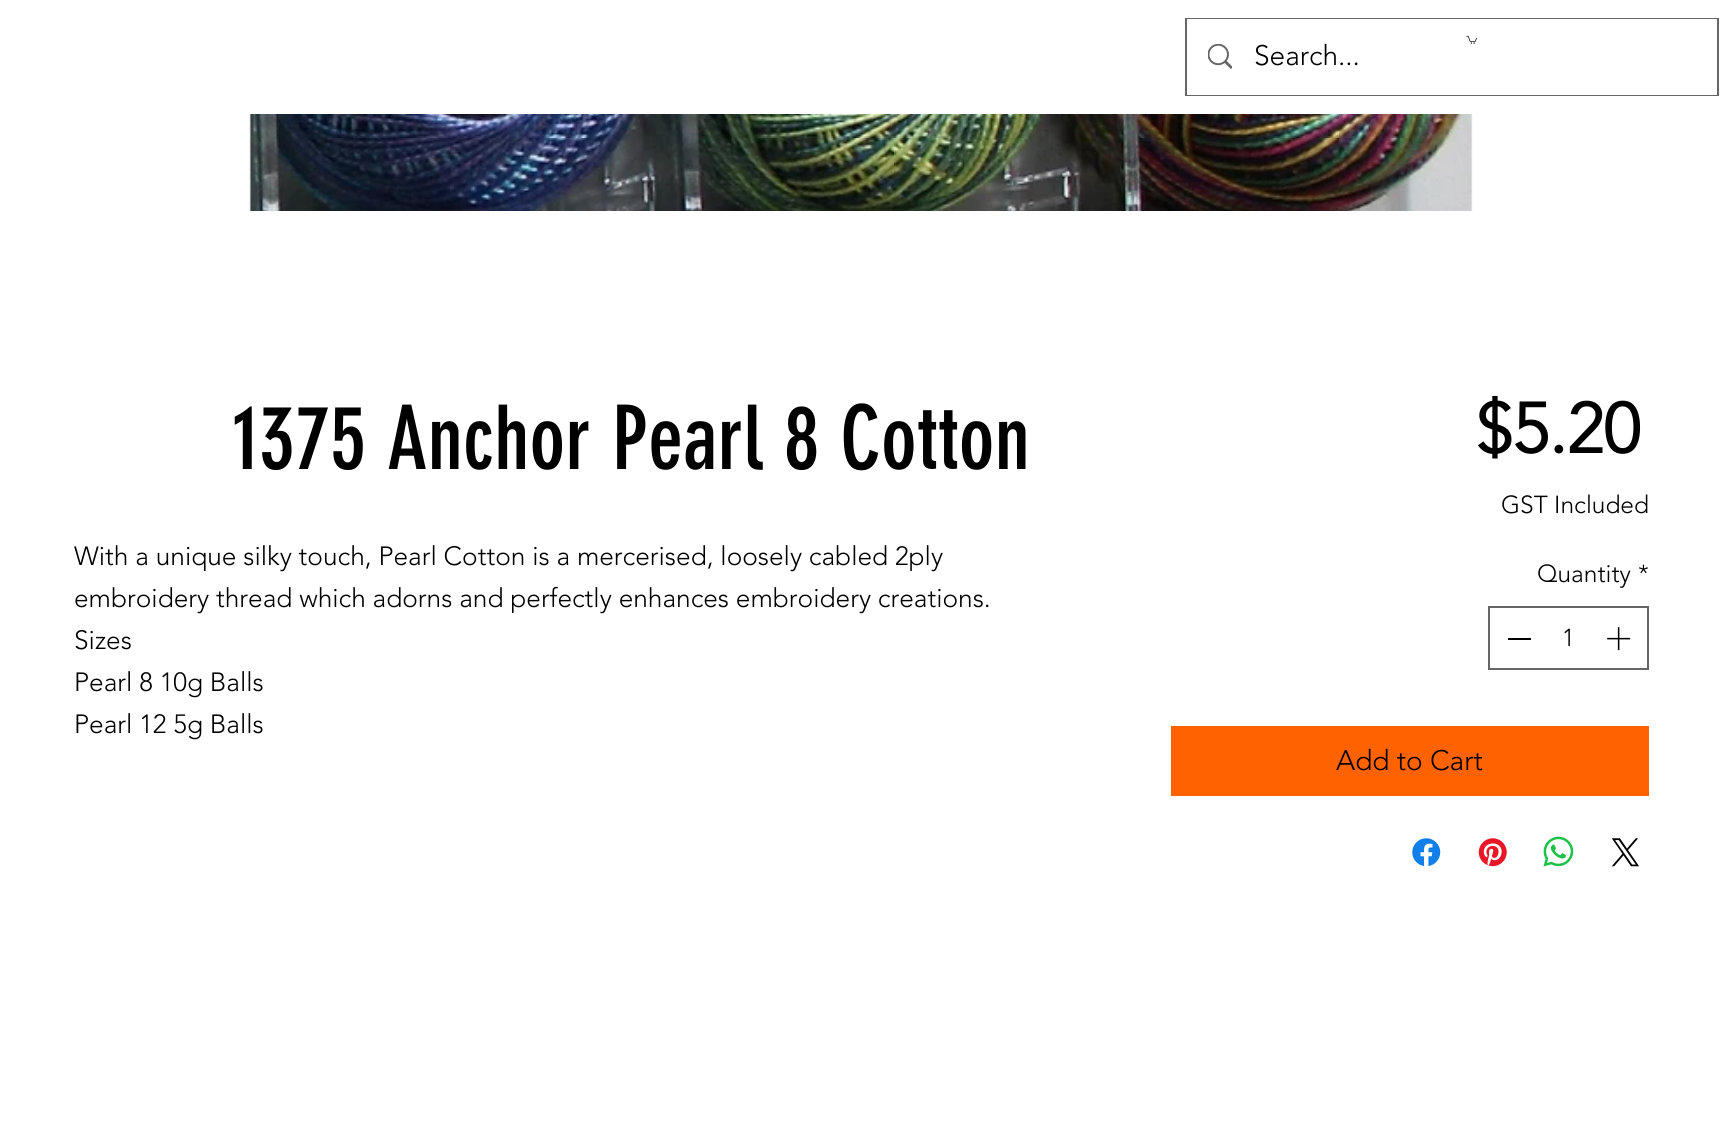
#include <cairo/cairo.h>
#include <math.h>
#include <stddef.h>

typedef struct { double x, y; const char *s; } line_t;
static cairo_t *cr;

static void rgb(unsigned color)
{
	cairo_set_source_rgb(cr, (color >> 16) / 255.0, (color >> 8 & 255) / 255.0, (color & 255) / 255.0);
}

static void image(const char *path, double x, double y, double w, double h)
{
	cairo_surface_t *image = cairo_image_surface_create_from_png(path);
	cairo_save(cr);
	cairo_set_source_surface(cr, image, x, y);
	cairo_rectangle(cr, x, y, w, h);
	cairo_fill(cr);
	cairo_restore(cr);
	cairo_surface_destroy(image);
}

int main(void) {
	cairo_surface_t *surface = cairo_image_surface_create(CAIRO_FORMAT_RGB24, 1721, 1134);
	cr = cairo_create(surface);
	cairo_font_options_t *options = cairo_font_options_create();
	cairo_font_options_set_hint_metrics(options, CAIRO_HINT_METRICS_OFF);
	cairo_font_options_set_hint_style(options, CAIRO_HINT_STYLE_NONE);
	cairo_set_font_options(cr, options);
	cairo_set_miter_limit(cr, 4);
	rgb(0xffffff);
	cairo_paint(cr);
	cairo_rectangle(cr, 1186, 19, 532, 76);
	rgb(0x666666);
	cairo_stroke(cr);
	rgb(0xffffff);
	cairo_rectangle(cr, 1187, 19, 530, 76);
	cairo_fill(cr);
	image("img/1.png", 1466, 35, 11, 9);
	image("img/2.png", 1208, 44, 24, 25);
	image("img/3.png", 249, 114, 1224, 97);
	cairo_rectangle(cr, 1489, 607, 159, 62);
	rgb(0x666666);
	cairo_stroke(cr);
	rgb(0x000000);
	cairo_rectangle(cr, 1508, 638, 23, 2);
	cairo_fill(cr);
	image("img/4.png", 1607, 627, 24, 24);
	rgb(0xff6200);
	cairo_rectangle(cr, 1171, 726, 478, 70);
	cairo_fill(cr);
	image("img/5.png", 1412, 838, 29, 28);
	image("img/6.png", 1478, 838, 29, 29);
	image("img/7.png", 1543, 836, 31, 31);
	image("img/8.png", 1611, 838, 28, 29);
	cairo_select_font_face(cr, "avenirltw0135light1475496 Light", CAIRO_FONT_SLANT_NORMAL, CAIRO_FONT_WEIGHT_NORMAL);
	cairo_set_font_size(cr, 28);
	rgb(0x000000);
	cairo_move_to(cr, 1254, 65);
	cairo_show_text(cr, "Search...");
	cairo_select_font_face(cr, "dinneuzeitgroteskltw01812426", CAIRO_FONT_SLANT_NORMAL, CAIRO_FONT_WEIGHT_NORMAL);
	cairo_set_font_size(cr, 87.5);
	cairo_move_to(cr, 233, 469);
	cairo_show_text(cr, "1375 Anchor Pearl 8 Cotton");
	cairo_select_font_face(cr, "avenirltw0135light1475496 Light", CAIRO_FONT_SLANT_NORMAL, CAIRO_FONT_WEIGHT_NORMAL);
	cairo_set_font_size(cr, 26.25);
	{
		static const line_t items[] = {
			{74, 565, "With a unique silky touch, Pearl Cotton is a mercerised, loosely cabled 2ply"},
			{74, 607, "embroidery thread which adorns and perfectly enhances embroidery creations."},
			{74, 649, "Sizes"},
			{74, 691, "Pearl 8 10g Balls"},
			{74, 733, "Pearl 12 5g Balls"},
		};
		for (size_t i = 0; i < sizeof items / sizeof *items; i++) {
			cairo_move_to(cr, items[i].x, items[i].y);
			cairo_show_text(cr, items[i].s);
		}
	}
	cairo_select_font_face(cr, "avenirltw0135light1475496", CAIRO_FONT_SLANT_NORMAL, CAIRO_FONT_WEIGHT_BOLD);
	cairo_set_font_size(cr, 70);
	cairo_move_to(cr, 1476, 453);
	cairo_show_text(cr, "$5.20");
	cairo_select_font_face(cr, "avenirltw0135light1475496 Light", CAIRO_FONT_SLANT_NORMAL, CAIRO_FONT_WEIGHT_NORMAL);
	cairo_set_font_size(cr, 24.5);
	{
		static const line_t items[] = {
			{1501, 513, "GST Included"},
			{1537, 582, "Quantity"},
			{1638, 582, "*"},
			{1562, 646, "1"},
		};
		for (size_t i = 0; i < sizeof items / sizeof *items; i++) {
			cairo_move_to(cr, items[i].x, items[i].y);
			cairo_show_text(cr, items[i].s);
		}
	}
	cairo_set_font_size(cr, 28);
	cairo_move_to(cr, 1336, 770);
	cairo_show_text(cr, "Add to Cart");
	cairo_surface_write_to_png(surface, "page.png");
	cairo_font_options_destroy(options);
	cairo_destroy(cr);
	cairo_surface_destroy(surface);
	return 0;
}
